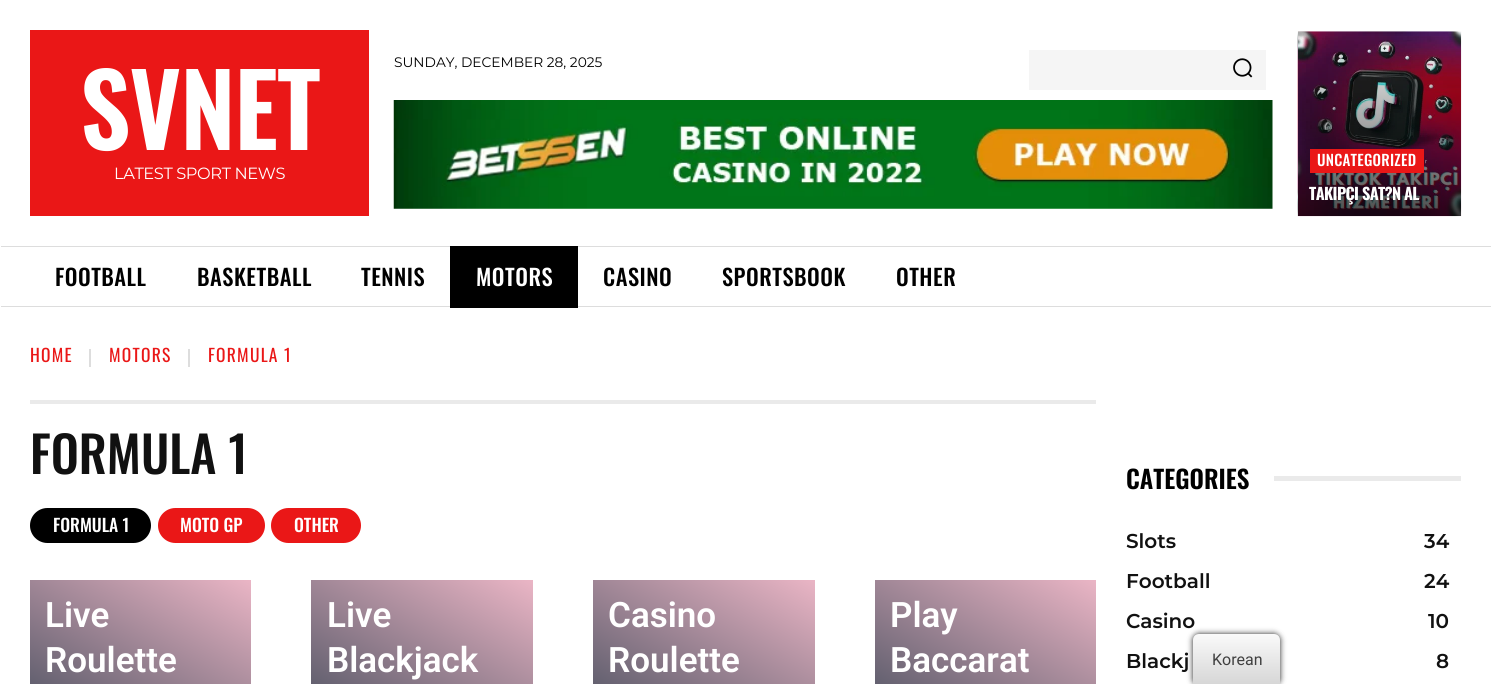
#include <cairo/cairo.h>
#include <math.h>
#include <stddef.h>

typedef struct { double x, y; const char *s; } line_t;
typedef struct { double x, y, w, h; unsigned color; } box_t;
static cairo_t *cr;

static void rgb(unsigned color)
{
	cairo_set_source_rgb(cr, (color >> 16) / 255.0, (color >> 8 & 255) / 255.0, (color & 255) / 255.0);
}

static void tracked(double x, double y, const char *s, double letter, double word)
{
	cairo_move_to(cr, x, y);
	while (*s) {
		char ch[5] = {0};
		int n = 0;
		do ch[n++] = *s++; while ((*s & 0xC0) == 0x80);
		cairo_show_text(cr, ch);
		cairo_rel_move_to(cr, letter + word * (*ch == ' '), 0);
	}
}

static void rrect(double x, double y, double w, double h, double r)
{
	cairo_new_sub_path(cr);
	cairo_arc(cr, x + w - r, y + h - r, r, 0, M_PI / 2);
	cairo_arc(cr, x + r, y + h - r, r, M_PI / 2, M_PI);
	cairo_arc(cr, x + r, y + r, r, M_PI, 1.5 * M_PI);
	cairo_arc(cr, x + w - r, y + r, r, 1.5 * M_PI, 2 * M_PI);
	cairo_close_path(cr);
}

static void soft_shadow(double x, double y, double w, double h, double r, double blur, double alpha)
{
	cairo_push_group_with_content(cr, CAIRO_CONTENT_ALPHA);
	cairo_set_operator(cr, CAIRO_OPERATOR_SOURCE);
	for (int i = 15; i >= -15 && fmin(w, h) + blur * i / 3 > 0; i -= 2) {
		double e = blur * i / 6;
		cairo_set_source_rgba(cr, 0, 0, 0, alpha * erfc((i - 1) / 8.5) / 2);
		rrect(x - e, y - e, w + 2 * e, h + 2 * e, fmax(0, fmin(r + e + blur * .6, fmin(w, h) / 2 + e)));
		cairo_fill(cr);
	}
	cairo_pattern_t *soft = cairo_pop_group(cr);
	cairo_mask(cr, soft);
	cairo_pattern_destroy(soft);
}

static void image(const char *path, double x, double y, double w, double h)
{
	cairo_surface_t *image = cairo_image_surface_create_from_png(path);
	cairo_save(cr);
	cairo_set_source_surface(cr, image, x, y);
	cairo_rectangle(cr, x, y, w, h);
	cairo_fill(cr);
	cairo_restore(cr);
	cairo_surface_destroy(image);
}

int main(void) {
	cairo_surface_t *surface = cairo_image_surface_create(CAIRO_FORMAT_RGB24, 1491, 684);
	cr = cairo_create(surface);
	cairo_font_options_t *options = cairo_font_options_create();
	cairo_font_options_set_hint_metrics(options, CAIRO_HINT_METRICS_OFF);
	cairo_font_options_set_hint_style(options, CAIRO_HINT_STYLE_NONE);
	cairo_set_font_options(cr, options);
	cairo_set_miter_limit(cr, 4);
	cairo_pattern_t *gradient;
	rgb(0xffffff);
	cairo_paint(cr);
	rgb(0xf5f5f5);
	cairo_rectangle(cr, 1029, 50, 237, 40);
	cairo_fill(cr);
	image("img/1.png", 1233, 58, 20, 20);
	image("img/2.png", 393, 100, 880, 109);
	rgb(0xea1717);
	cairo_rectangle(cr, 30, 30, 339, 186);
	cairo_fill(cr);
	image("img/3.png", 1297, 31, 165, 186);
	gradient = cairo_pattern_create_linear(1379, 216, 1379, 31);
	cairo_pattern_add_color_stop_rgba(gradient, 0, 0, 0, 0, 0.7);
	cairo_pattern_add_color_stop_rgba(gradient, 1, 0, 0, 0, 0);
	cairo_set_source(cr, gradient);
	cairo_pattern_destroy(gradient);
	cairo_rectangle(cr, 1298, 37, 163, 179);
	cairo_fill(cr);
	{
		static const box_t items[] = {
			{1310, 149, 114, 24, 0xea1717},
			{1, 246, 1490, 1, 0xdddddd},
			{1, 306, 1490, 1, 0xdddddd},
			{450, 246, 128, 62, 0x000000},
			{89, 349, 2, 18, 0xdddddd},
			{188, 349, 2, 18, 0xdddddd},
			{30, 400, 1066, 4, 0xeaeaea},
		};
		for (size_t i = 0; i < sizeof items / sizeof *items; i++) {
			rgb(items[i].color);
			cairo_rectangle(cr, items[i].x, items[i].y, items[i].w, items[i].h);
			cairo_fill(cr);
		}
	}
	rgb(0x000000);
	rrect(30, 508, 121, 35, 17.5);
	cairo_fill(cr);
	rgb(0xea1717);
	rrect(158, 508, 107, 35, 17.5);
	cairo_fill(cr);
	rrect(271, 508, 90, 35, 17.5);
	cairo_fill(cr);
	gradient = cairo_pattern_create_linear(72, 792, 209, 556);
	cairo_pattern_add_color_stop_rgba(gradient, 0, 0.2, 0.259, 0.318, 1);
	cairo_pattern_add_color_stop_rgba(gradient, 1, 0.918, 0.71, 0.773, 1);
	cairo_set_source(cr, gradient);
	cairo_pattern_destroy(gradient);
	cairo_rectangle(cr, 30, 580, 221, 104);
	cairo_fill(cr);
	gradient = cairo_pattern_create_linear(354, 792, 490, 556);
	cairo_pattern_add_color_stop_rgba(gradient, 0, 0.2, 0.259, 0.318, 1);
	cairo_pattern_add_color_stop_rgba(gradient, 1, 0.918, 0.71, 0.773, 1);
	cairo_set_source(cr, gradient);
	cairo_pattern_destroy(gradient);
	cairo_rectangle(cr, 311, 580, 222, 104);
	cairo_fill(cr);
	gradient = cairo_pattern_create_linear(635, 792, 772, 555);
	cairo_pattern_add_color_stop_rgba(gradient, 0, 0.2, 0.259, 0.318, 1);
	cairo_pattern_add_color_stop_rgba(gradient, 1, 0.918, 0.71, 0.773, 1);
	cairo_set_source(cr, gradient);
	cairo_pattern_destroy(gradient);
	cairo_rectangle(cr, 593, 580, 222, 104);
	cairo_fill(cr);
	gradient = cairo_pattern_create_linear(917, 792, 1054, 556);
	cairo_pattern_add_color_stop_rgba(gradient, 0, 0.2, 0.259, 0.318, 1);
	cairo_pattern_add_color_stop_rgba(gradient, 1, 0.918, 0.71, 0.773, 1);
	cairo_set_source(cr, gradient);
	cairo_pattern_destroy(gradient);
	cairo_rectangle(cr, 875, 580, 221, 104);
	cairo_fill(cr);
	rgb(0xeaeaea);
	cairo_rectangle(cr, 1274, 476, 187, 5);
	cairo_fill(cr);
	rgb(0x212121);
	soft_shadow(1193, 634, 87, 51, 6, 3, 1);
	gradient = cairo_pattern_create_linear(1236, 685, 1236, 634);
	cairo_pattern_add_color_stop_rgba(gradient, 0, 0.839, 0.839, 0.839, 1);
	cairo_pattern_add_color_stop_rgba(gradient, 1, 0.98, 0.98, 0.98, 1);
	cairo_set_source(cr, gradient);
	cairo_pattern_destroy(gradient);
	cairo_new_path(cr);
	cairo_move_to(cr, 1199, 634);
	cairo_line_to(cr, 1274, 634);
	cairo_curve_to(cr, 1277.5, 634, 1280, 636.5, 1280, 640);
	cairo_line_to(cr, 1280, 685);
	cairo_line_to(cr, 1193, 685);
	cairo_line_to(cr, 1193, 640);
	cairo_curve_to(cr, 1193, 636.5, 1195.5, 634, 1199, 634);
	cairo_close_path(cr);
	cairo_fill(cr);
	cairo_select_font_face(cr, "Montserrat", CAIRO_FONT_SLANT_NORMAL, CAIRO_FONT_WEIGHT_NORMAL);
	cairo_set_font_size(cr, 13.75);
	rgb(0x000000);
	cairo_move_to(cr, 394, 67);
	cairo_show_text(cr, "SUNDAY, DECEMBER 28, 2025");
	cairo_select_font_face(cr, "Oswald SemiBold", CAIRO_FONT_SLANT_NORMAL, CAIRO_FONT_WEIGHT_NORMAL);
	cairo_set_font_size(cr, 100);
	rgb(0xffffff);
	tracked(80, 150, "SVNET", -1.25, 0);
	cairo_select_font_face(cr, "Montserrat", CAIRO_FONT_SLANT_NORMAL, CAIRO_FONT_WEIGHT_NORMAL);
	cairo_set_font_size(cr, 16.25);
	tracked(114, 179, "LATEST SPORT NEWS", -0.4, 0);
	cairo_select_font_face(cr, "Oswald Medium", CAIRO_FONT_SLANT_NORMAL, CAIRO_FONT_WEIGHT_NORMAL);
	cairo_set_font_size(cr, 15);
	tracked(1317, 166, "UNCATEGORIZED", 0.25, 0);
	cairo_select_font_face(cr, "Oswald", CAIRO_FONT_SLANT_NORMAL, CAIRO_FONT_WEIGHT_BOLD);
	cairo_set_font_size(cr, 16.25);
	tracked(1309, 200, "TAKIPÇI SAT?N AL", -0.6, 0);
	cairo_select_font_face(cr, "Oswald Medium", CAIRO_FONT_SLANT_NORMAL, CAIRO_FONT_WEIGHT_NORMAL);
	cairo_set_font_size(cr, 22.5);
	rgb(0x000000);
	{
		static const line_t items[] = {
			{55, 286, "FOOTBALL"},
			{197, 286, "BASKETBALL"},
			{361, 286, "TENNIS"},
		};
		for (size_t i = 0; i < sizeof items / sizeof *items; i++) {
			tracked(items[i].x, items[i].y, items[i].s, 0.5, 0);
		}
	}
	rgb(0xffffff);
	tracked(476, 286, "MOTORS", 0.5, 0);
	rgb(0x000000);
	{
		static const line_t items[] = {
			{603, 286, "CASINO"},
			{722, 286, "SPORTSBOOK"},
			{896, 286, "OTHER"},
		};
		for (size_t i = 0; i < sizeof items / sizeof *items; i++) {
			tracked(items[i].x, items[i].y, items[i].s, 0.5, 0);
		}
	}
	cairo_select_font_face(cr, "Oswald", CAIRO_FONT_SLANT_NORMAL, CAIRO_FONT_WEIGHT_NORMAL);
	cairo_set_font_size(cr, 17.5);
	rgb(0xea1717);
	{
		static const line_t items[] = {
			{30, 362, "HOME"},
			{109, 362, "MOTORS"},
			{208, 362, "FORMULA 1"},
		};
		for (size_t i = 0; i < sizeof items / sizeof *items; i++) {
			tracked(items[i].x, items[i].y, items[i].s, 1.25, 0);
		}
	}
	cairo_select_font_face(cr, "Oswald Medium", CAIRO_FONT_SLANT_NORMAL, CAIRO_FONT_WEIGHT_NORMAL);
	cairo_set_font_size(cr, 50);
	rgb(0x111111);
	cairo_move_to(cr, 30, 474);
	cairo_show_text(cr, "FORMULA 1");
	cairo_set_font_size(cr, 17.5);
	rgb(0xffffff);
	{
		static const line_t items[] = {
			{53, 532, "FORMULA 1"},
			{180, 532, "MOTO GP"},
			{294, 532, "OTHER"},
		};
		for (size_t i = 0; i < sizeof items / sizeof *items; i++) {
			cairo_move_to(cr, items[i].x, items[i].y);
			cairo_show_text(cr, items[i].s);
		}
	}
	cairo_select_font_face(cr, "Roboto SemiBold", CAIRO_FONT_SLANT_NORMAL, CAIRO_FONT_WEIGHT_NORMAL);
	cairo_set_font_size(cr, 35);
	{
		static const line_t items[] = {
			{45, 627, "Live"},
			{45, 672, "Roulette"},
			{327, 627, "Live"},
			{327, 672, "Blackjack"},
			{608, 627, "Casino"},
			{608, 672, "Roulette"},
			{890, 627, "Play"},
			{890, 672, "Baccarat"},
		};
		for (size_t i = 0; i < sizeof items / sizeof *items; i++) {
			cairo_move_to(cr, items[i].x, items[i].y);
			cairo_show_text(cr, items[i].s);
		}
	}
	cairo_select_font_face(cr, "Oswald SemiBold", CAIRO_FONT_SLANT_NORMAL, CAIRO_FONT_WEIGHT_NORMAL);
	cairo_set_font_size(cr, 25);
	rgb(0x000000);
	cairo_move_to(cr, 1126, 489);
	cairo_show_text(cr, "CATEGORIES");
	cairo_select_font_face(cr, "Montserrat SemiBold", CAIRO_FONT_SLANT_NORMAL, CAIRO_FONT_WEIGHT_NORMAL);
	cairo_set_font_size(cr, 20);
	rgb(0x111111);
	{
		static const line_t items[] = {
			{1126, 548, "Slots"},
			{1424, 548, "34"},
			{1126, 588, "Football"},
			{1424, 588, "24"},
			{1126, 628, "Casino"},
			{1428, 628, "10"},
			{1126, 668, "Blackj"},
			{1436, 668, "8"},
		};
		for (size_t i = 0; i < sizeof items / sizeof *items; i++) {
			cairo_move_to(cr, items[i].x, items[i].y);
			cairo_show_text(cr, items[i].s);
		}
	}
	cairo_select_font_face(cr, "Roboto", CAIRO_FONT_SLANT_NORMAL, CAIRO_FONT_WEIGHT_NORMAL);
	cairo_set_font_size(cr, 16);
	rgb(0x404040);
	cairo_move_to(cr, 1212, 665);
	cairo_show_text(cr, "Korean");
	cairo_surface_write_to_png(surface, "page.png");
	cairo_font_options_destroy(options);
	cairo_destroy(cr);
	cairo_surface_destroy(surface);
	return 0;
}
